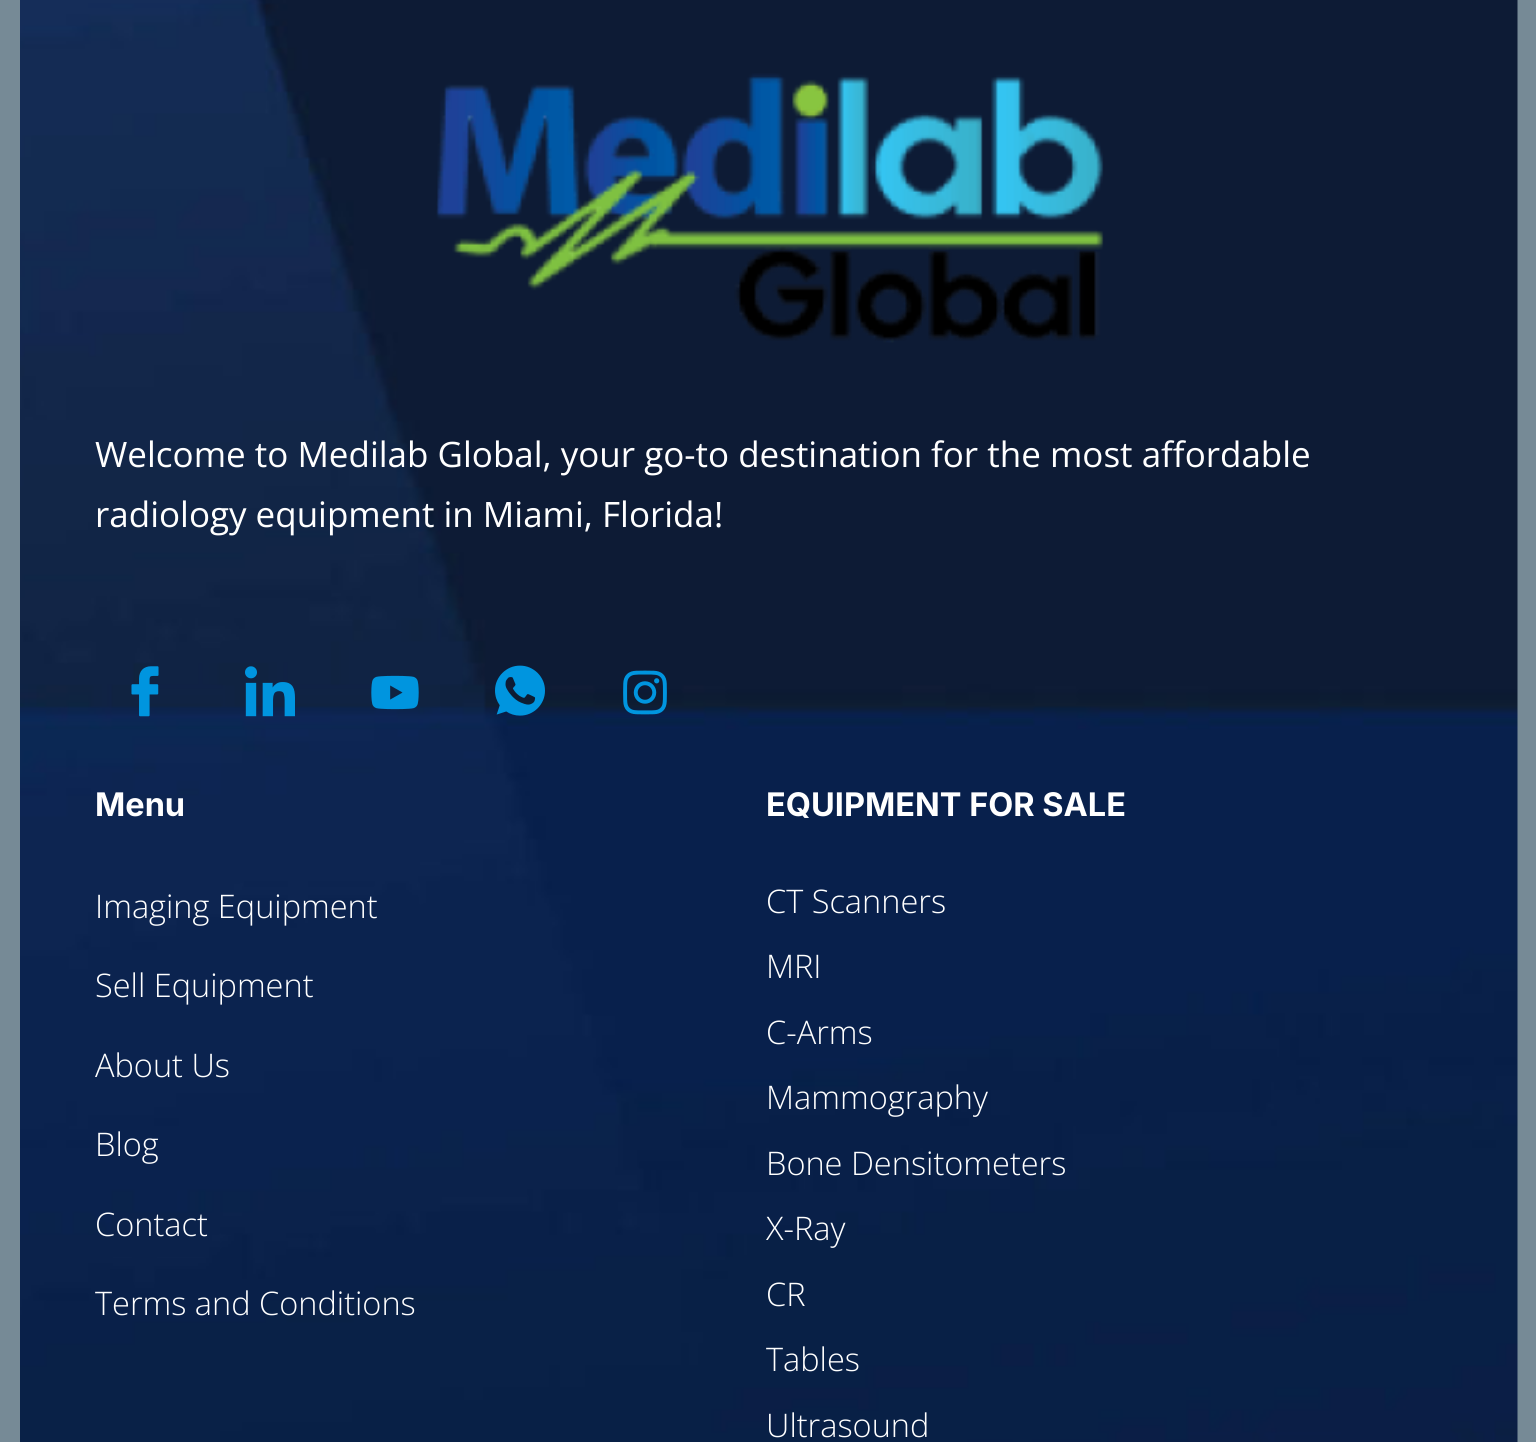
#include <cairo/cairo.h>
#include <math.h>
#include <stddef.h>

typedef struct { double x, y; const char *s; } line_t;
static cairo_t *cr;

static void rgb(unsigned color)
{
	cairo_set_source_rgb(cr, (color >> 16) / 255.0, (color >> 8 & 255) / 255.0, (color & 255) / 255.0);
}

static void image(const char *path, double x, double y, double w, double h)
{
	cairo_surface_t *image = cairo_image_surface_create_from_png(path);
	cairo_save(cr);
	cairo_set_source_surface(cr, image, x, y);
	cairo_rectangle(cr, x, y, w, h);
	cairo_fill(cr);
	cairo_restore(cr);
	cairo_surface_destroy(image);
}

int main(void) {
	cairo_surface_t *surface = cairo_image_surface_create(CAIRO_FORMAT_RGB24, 1536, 1442);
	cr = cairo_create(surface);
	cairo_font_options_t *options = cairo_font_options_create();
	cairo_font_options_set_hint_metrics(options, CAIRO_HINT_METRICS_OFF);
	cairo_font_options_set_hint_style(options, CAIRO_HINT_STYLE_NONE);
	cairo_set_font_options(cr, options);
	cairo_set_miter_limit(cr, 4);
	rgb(0x768a96);
	cairo_paint(cr);
	image("img/1.png", 20, 0, 1498, 1442);
	image("img/2.png", 436, 73, 668, 270);
	image("img/3.png", 131, 666, 28, 51);
	image("img/4.png", 245, 666, 50, 51);
	image("img/5.png", 371, 675, 48, 35);
	image("img/6.png", 495, 665, 50, 51);
	image("img/7.png", 623, 670, 44, 45);
	cairo_select_font_face(cr, "Open Sans", CAIRO_FONT_SLANT_NORMAL, CAIRO_FONT_WEIGHT_NORMAL);
	cairo_set_font_size(cr, 35);
	rgb(0xffffff);
	cairo_move_to(cr, 95, 467);
	cairo_show_text(cr, "Welcome to Medilab Global, your go-to destination for the most affordable");
	cairo_move_to(cr, 95, 527);
	cairo_show_text(cr, "radiology equipment in Miami, Florida!");
	cairo_select_font_face(cr, "Inter", CAIRO_FONT_SLANT_NORMAL, CAIRO_FONT_WEIGHT_BOLD);
	cairo_set_font_size(cr, 32.5);
	cairo_move_to(cr, 95, 816);
	cairo_show_text(cr, "Menu");
	cairo_select_font_face(cr, "Open Sans Light", CAIRO_FONT_SLANT_NORMAL, CAIRO_FONT_WEIGHT_NORMAL);
	{
		static const line_t items[] = {
			{95, 918, "Imaging Equipment"},
			{95, 997, "Sell Equipment"},
			{95, 1077, "About Us"},
			{95, 1156, "Blog"},
			{95, 1236, "Contact"},
			{95, 1315, "Terms and Conditions"},
		};
		for (size_t i = 0; i < sizeof items / sizeof *items; i++) {
			cairo_move_to(cr, items[i].x, items[i].y);
			cairo_show_text(cr, items[i].s);
		}
	}
	cairo_select_font_face(cr, "Inter", CAIRO_FONT_SLANT_NORMAL, CAIRO_FONT_WEIGHT_BOLD);
	cairo_move_to(cr, 766, 816);
	cairo_show_text(cr, "EQUIPMENT FOR SALE");
	cairo_select_font_face(cr, "Open Sans Light", CAIRO_FONT_SLANT_NORMAL, CAIRO_FONT_WEIGHT_NORMAL);
	{
		static const line_t items[] = {
			{766, 913, "CT Scanners"},
			{766, 978, "MRI"},
			{766, 1044, "C-Arms"},
			{766, 1109, "Mammography"},
			{766, 1175, "Bone Densitometers"},
			{766, 1240, "X-Ray"},
			{766, 1306, "CR"},
			{766, 1371, "Tables"},
			{766, 1437, "Ultrasound"},
		};
		for (size_t i = 0; i < sizeof items / sizeof *items; i++) {
			cairo_move_to(cr, items[i].x, items[i].y);
			cairo_show_text(cr, items[i].s);
		}
	}
	cairo_surface_write_to_png(surface, "page.png");
	cairo_font_options_destroy(options);
	cairo_destroy(cr);
	cairo_surface_destroy(surface);
	return 0;
}
